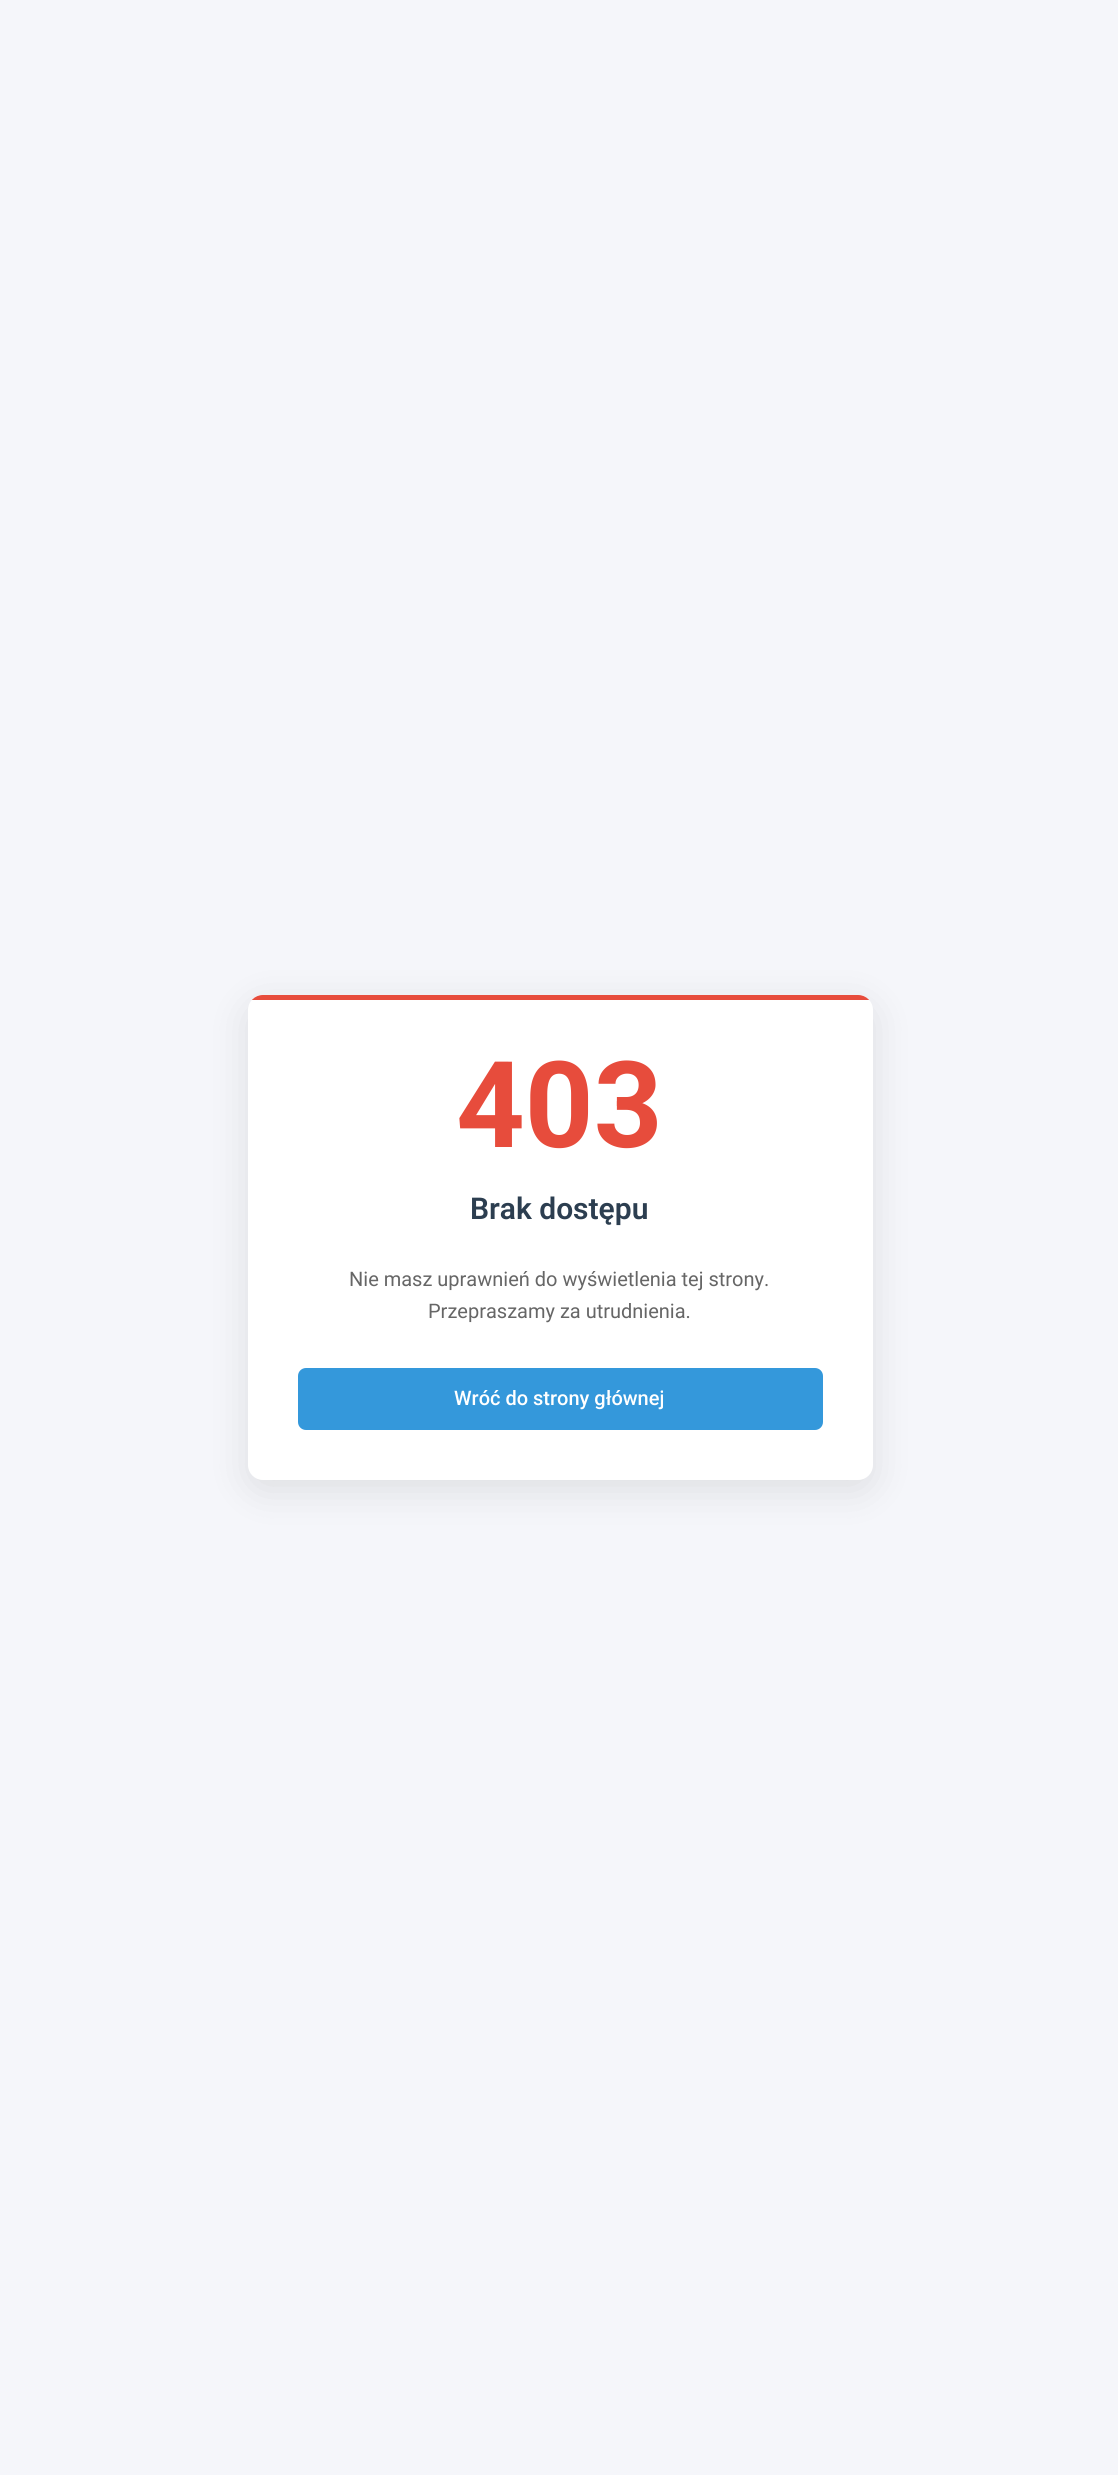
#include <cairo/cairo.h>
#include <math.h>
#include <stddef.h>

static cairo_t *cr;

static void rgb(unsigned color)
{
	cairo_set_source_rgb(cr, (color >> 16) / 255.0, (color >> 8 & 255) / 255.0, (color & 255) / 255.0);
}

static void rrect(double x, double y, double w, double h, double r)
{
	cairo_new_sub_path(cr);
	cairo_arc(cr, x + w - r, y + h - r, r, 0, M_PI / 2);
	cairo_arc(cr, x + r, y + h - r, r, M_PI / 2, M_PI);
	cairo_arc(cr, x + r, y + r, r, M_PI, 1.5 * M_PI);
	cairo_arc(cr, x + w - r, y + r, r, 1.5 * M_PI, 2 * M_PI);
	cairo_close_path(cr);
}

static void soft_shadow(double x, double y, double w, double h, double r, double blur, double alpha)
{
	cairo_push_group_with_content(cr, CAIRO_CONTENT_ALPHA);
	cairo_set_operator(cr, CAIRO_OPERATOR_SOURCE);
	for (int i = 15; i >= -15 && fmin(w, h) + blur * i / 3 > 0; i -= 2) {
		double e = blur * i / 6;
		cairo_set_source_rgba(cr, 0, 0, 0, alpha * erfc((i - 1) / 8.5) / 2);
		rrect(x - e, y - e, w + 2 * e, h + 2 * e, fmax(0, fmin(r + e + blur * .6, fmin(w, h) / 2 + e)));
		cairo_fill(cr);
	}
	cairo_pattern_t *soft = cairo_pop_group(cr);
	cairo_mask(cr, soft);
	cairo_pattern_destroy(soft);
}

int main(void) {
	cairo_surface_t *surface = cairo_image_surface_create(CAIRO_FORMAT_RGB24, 1118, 2475);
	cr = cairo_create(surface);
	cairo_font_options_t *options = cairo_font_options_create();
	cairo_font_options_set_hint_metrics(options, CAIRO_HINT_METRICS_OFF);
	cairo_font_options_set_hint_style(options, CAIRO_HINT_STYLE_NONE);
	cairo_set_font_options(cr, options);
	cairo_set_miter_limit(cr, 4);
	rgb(0xf5f6fa);
	cairo_paint(cr);
	rgb(0x000000);
	soft_shadow(248, 1005, 625, 485, 15, 19, 0.1);
	rgb(0xffffff);
	rrect(248, 995, 625, 485, 15);
	cairo_fill(cr);
	cairo_save(cr);
	rrect(248, 995, 625, 485, 15);
	cairo_clip(cr);
	rgb(0xe74c3c);
	cairo_rectangle(cr, 248, 995, 625, 5);
	cairo_fill(cr);
	cairo_restore(cr);
	rgb(0x3498db);
	rrect(298, 1368, 525, 62, 8);
	cairo_fill(cr);
	cairo_select_font_face(cr, "Roboto", CAIRO_FONT_SLANT_NORMAL, CAIRO_FONT_WEIGHT_BOLD);
	cairo_set_font_size(cr, 120);
	rgb(0xe74c3c);
	cairo_move_to(cr, 456, 1147);
	cairo_show_text(cr, "403");
	cairo_select_font_face(cr, "Roboto SemiBold", CAIRO_FONT_SLANT_NORMAL, CAIRO_FONT_WEIGHT_NORMAL);
	cairo_set_font_size(cr, 30);
	rgb(0x2c3e50);
	cairo_move_to(cr, 470, 1219);
	cairo_show_text(cr, "Brak dostępu");
	cairo_select_font_face(cr, "Roboto", CAIRO_FONT_SLANT_NORMAL, CAIRO_FONT_WEIGHT_NORMAL);
	cairo_set_font_size(cr, 20);
	rgb(0x666666);
	cairo_move_to(cr, 349, 1286);
	cairo_show_text(cr, "Nie masz uprawnień do wyświetlenia tej strony.");
	cairo_move_to(cr, 428, 1318);
	cairo_show_text(cr, "Przepraszamy za utrudnienia.");
	cairo_select_font_face(cr, "Roboto Medium", CAIRO_FONT_SLANT_NORMAL, CAIRO_FONT_WEIGHT_NORMAL);
	rgb(0xffffff);
	cairo_move_to(cr, 454, 1405);
	cairo_show_text(cr, "Wróć do strony głównej");
	cairo_surface_write_to_png(surface, "page.png");
	cairo_font_options_destroy(options);
	cairo_destroy(cr);
	cairo_surface_destroy(surface);
	return 0;
}
